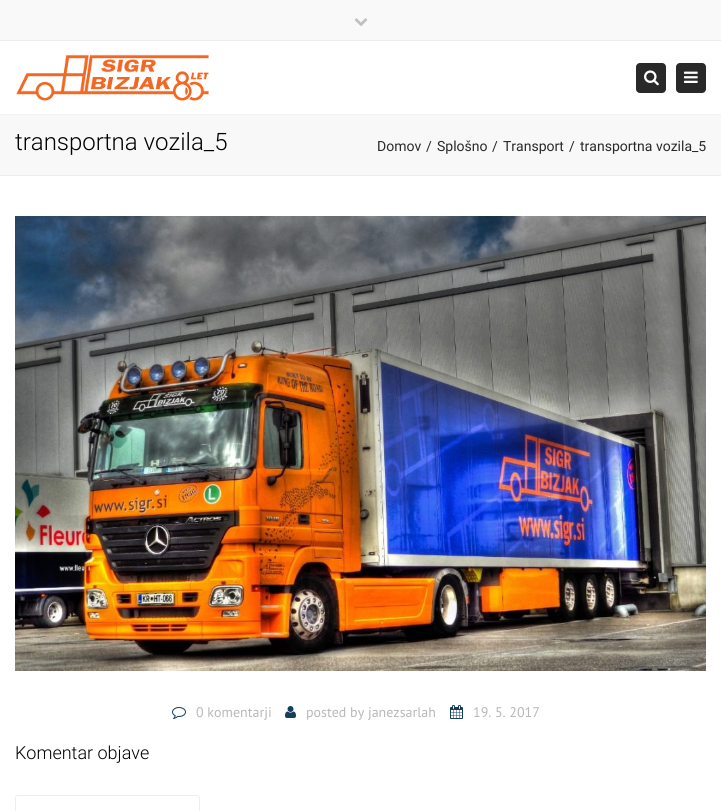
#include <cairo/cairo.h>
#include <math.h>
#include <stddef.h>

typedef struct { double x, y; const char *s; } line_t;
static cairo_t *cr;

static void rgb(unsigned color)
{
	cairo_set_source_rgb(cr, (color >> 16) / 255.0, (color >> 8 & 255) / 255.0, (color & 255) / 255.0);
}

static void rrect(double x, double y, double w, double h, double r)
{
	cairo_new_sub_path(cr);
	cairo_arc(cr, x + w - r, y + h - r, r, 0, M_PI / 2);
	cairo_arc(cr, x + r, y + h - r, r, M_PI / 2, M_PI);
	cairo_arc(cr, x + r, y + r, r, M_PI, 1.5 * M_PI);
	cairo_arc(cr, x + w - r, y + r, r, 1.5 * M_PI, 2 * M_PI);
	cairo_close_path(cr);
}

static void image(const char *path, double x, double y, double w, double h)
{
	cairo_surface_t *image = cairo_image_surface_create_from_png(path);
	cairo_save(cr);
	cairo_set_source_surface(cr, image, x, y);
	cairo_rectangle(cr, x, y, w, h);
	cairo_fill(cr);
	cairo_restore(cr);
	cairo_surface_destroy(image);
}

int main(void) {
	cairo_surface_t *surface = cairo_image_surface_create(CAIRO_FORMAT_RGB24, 721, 811);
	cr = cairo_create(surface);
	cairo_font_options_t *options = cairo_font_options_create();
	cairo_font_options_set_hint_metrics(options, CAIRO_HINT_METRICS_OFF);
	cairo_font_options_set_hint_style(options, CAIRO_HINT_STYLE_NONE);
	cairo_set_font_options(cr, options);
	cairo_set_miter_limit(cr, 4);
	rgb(0xffffff);
	cairo_paint(cr);
	rgb(0xf9f9f9);
	cairo_rectangle(cr, 0, 0, 721, 40);
	cairo_fill(cr);
	rgb(0xededed);
	cairo_rectangle(cr, 0, 40, 721, 1);
	cairo_fill(cr);
	image("img/1.png", 354, 18, 14, 8);
	rgb(0xf2f2f2);
	cairo_rectangle(cr, 0, 114, 721, 1);
	cairo_fill(cr);
	image("img/2.png", 16, 54, 193, 47);
	rgb(0x292929);
	rrect(636, 63, 30, 30, 4);
	cairo_fill(cr);
	image("img/3.png", 644, 70, 15, 16);
	rrect(676, 63, 30, 30, 4);
	cairo_fill(cr);
	image("img/4.png", 684, 71, 14, 12);
	rgb(0xf8f8f8);
	cairo_rectangle(cr, 0, 115, 721, 60);
	cairo_fill(cr);
	rgb(0xededed);
	cairo_rectangle(cr, 0, 175, 721, 1);
	cairo_fill(cr);
	image("img/5.png", 15, 216, 691, 455);
	image("img/6.png", 172, 707, 14, 12);
	image("img/7.png", 285, 706, 11, 12);
	image("img/8.png", 450, 705, 13, 14);
	rrect(15.5, 795.5, 184, 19, 2.5);
	rgb(0xeeeeee);
	cairo_set_line_width(cr, 1);
	cairo_stroke(cr);
	cairo_select_font_face(cr, "Roboto Light", CAIRO_FONT_SLANT_NORMAL, CAIRO_FONT_WEIGHT_NORMAL);
	cairo_set_font_size(cr, 24);
	rgb(0x000000);
	cairo_move_to(cr, 15, 150);
	cairo_show_text(cr, "transportna vozila_5");
	cairo_select_font_face(cr, "Roboto", CAIRO_FONT_SLANT_NORMAL, CAIRO_FONT_WEIGHT_NORMAL);
	cairo_set_font_size(cr, 14);
	rgb(0x292929);
	{
		static const line_t items[] = {
			{377, 151, "Domov"},
			{426, 151, "/"},
			{437, 151, "Splošno"},
			{492, 151, "/"},
			{503, 151, "Transport"},
			{569, 151, "/"},
			{580, 151, "transportna vozila_5"},
		};
		for (size_t i = 0; i < sizeof items / sizeof *items; i++) {
			cairo_move_to(cr, items[i].x, items[i].y);
			cairo_show_text(cr, items[i].s);
		}
	}
	cairo_select_font_face(cr, "PT Sans", CAIRO_FONT_SLANT_NORMAL, CAIRO_FONT_WEIGHT_NORMAL);
	rgb(0xb8b8b8);
	{
		static const line_t items[] = {
			{196, 717, "0 komentarji"},
			{306, 717, "posted by janezsarlah"},
			{473, 717, "19. 5. 2017"},
		};
		for (size_t i = 0; i < sizeof items / sizeof *items; i++) {
			cairo_move_to(cr, items[i].x, items[i].y);
			cairo_show_text(cr, items[i].s);
		}
	}
	cairo_select_font_face(cr, "Roboto Light", CAIRO_FONT_SLANT_NORMAL, CAIRO_FONT_WEIGHT_NORMAL);
	cairo_set_font_size(cr, 18);
	rgb(0x000000);
	cairo_move_to(cr, 15, 759);
	cairo_show_text(cr, "Komentar objave");
	cairo_surface_write_to_png(surface, "page.png");
	cairo_font_options_destroy(options);
	cairo_destroy(cr);
	cairo_surface_destroy(surface);
	return 0;
}
